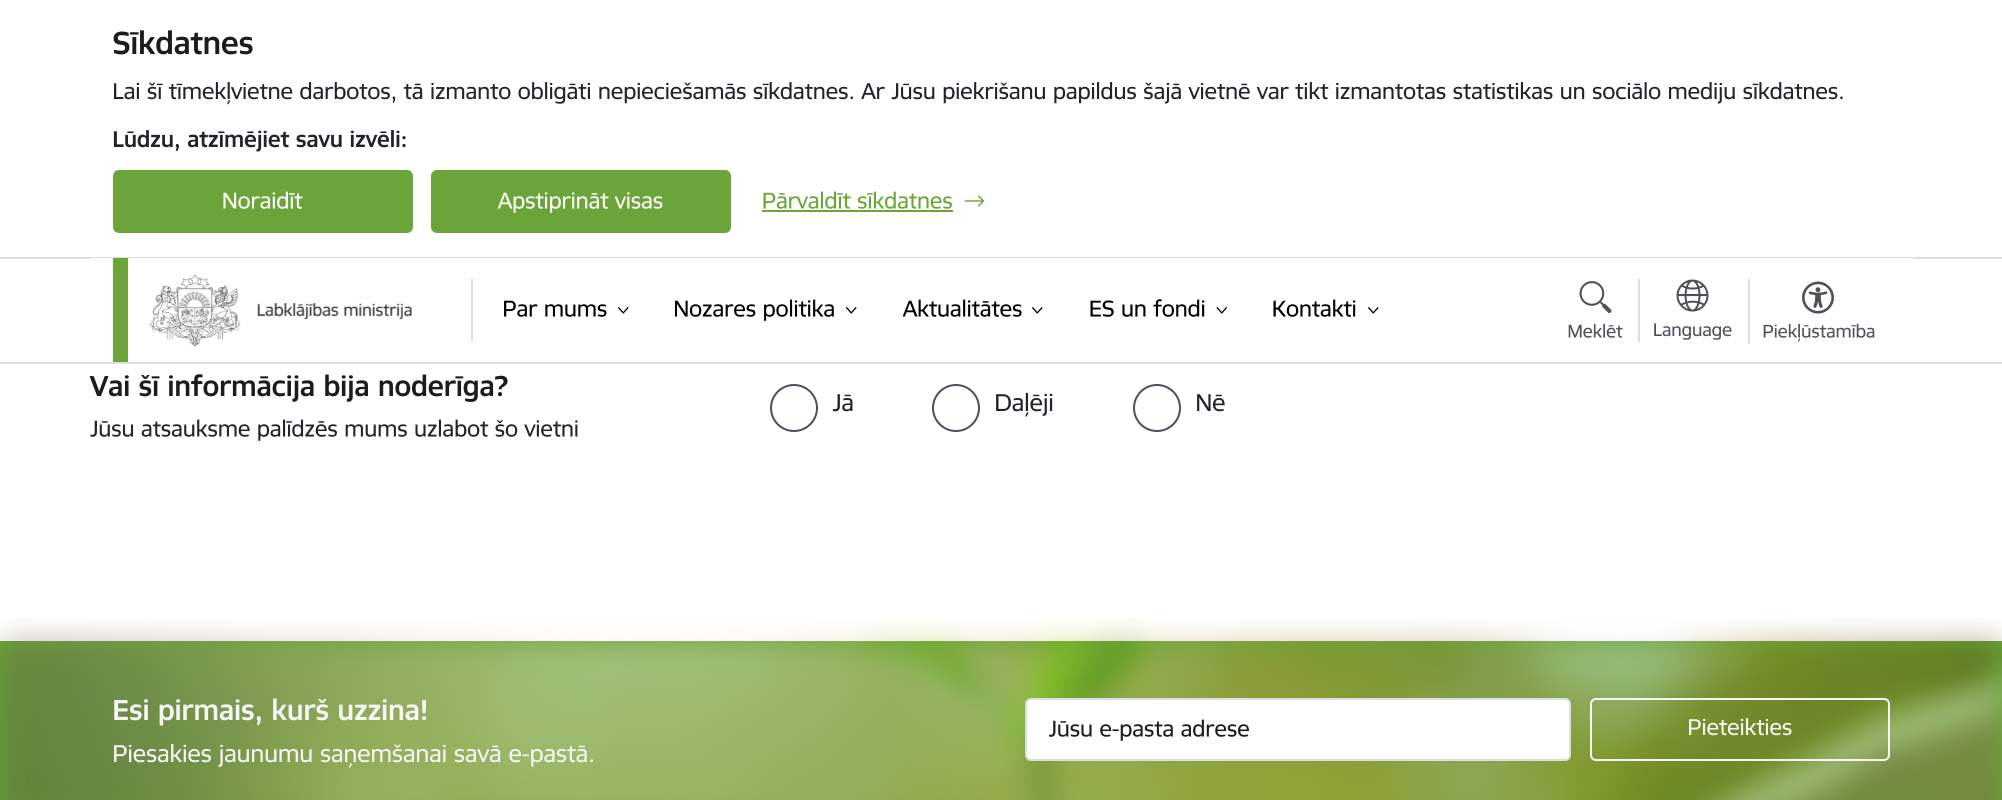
#include <cairo/cairo.h>
#include <math.h>
#include <stddef.h>

typedef struct { double x, y, w, h; unsigned color; } box_t;
static cairo_t *cr;

static void rgb(unsigned color)
{
	cairo_set_source_rgb(cr, (color >> 16) / 255.0, (color >> 8 & 255) / 255.0, (color & 255) / 255.0);
}

static void rrect(double x, double y, double w, double h, double r)
{
	cairo_new_sub_path(cr);
	cairo_arc(cr, x + w - r, y + h - r, r, 0, M_PI / 2);
	cairo_arc(cr, x + r, y + h - r, r, M_PI / 2, M_PI);
	cairo_arc(cr, x + r, y + r, r, M_PI, 1.5 * M_PI);
	cairo_arc(cr, x + w - r, y + r, r, 1.5 * M_PI, 2 * M_PI);
	cairo_close_path(cr);
}

static void image(const char *path, double x, double y, double w, double h)
{
	cairo_surface_t *image = cairo_image_surface_create_from_png(path);
	cairo_save(cr);
	cairo_set_source_surface(cr, image, x, y);
	cairo_rectangle(cr, x, y, w, h);
	cairo_fill(cr);
	cairo_restore(cr);
	cairo_surface_destroy(image);
}

int main(void) {
	cairo_surface_t *surface = cairo_image_surface_create(CAIRO_FORMAT_RGB24, 2002, 800);
	cr = cairo_create(surface);
	cairo_font_options_t *options = cairo_font_options_create();
	cairo_font_options_set_hint_metrics(options, CAIRO_HINT_METRICS_OFF);
	cairo_font_options_set_hint_style(options, CAIRO_HINT_STYLE_NONE);
	cairo_set_font_options(cr, options);
	cairo_set_miter_limit(cr, 4);
	rgb(0xffffff);
	cairo_paint(cr);
	rgb(0xdbdee4);
	cairo_rectangle(cr, 0, 257, 2002, 2);
	cairo_fill(cr);
	image("img/1.png", 113, 30, 140, 25);
	image("img/2.png", 114, 82, 1729, 23);
	image("img/3.png", 113, 130, 293, 22);
	rgb(0x6ba539);
	rrect(114, 171, 298, 61, 5);
	cairo_fill_preserve(cr);
	cairo_stroke(cr);
	image("img/4.png", 223, 191, 80, 18);
	rrect(432, 171, 298, 61, 5);
	cairo_fill_preserve(cr);
	cairo_stroke(cr);
	image("img/5.png", 497, 192, 166, 21);
	image("img/6.png", 763, 191, 189, 18);
	image("img/7.png", 964, 195, 21, 12);
	{
		static const box_t items[] = {
			{762, 210, 191, 2, 0x6ba539},
			{0, 362, 2002, 2, 0xdbdee4},
			{90, 258, 1823, 1, 0xffffff},
			{113, 258, 15, 104, 0x6ba539},
		};
		for (size_t i = 0; i < sizeof items / sizeof *items; i++) {
			rgb(items[i].color);
			cairo_rectangle(cr, items[i].x, items[i].y, items[i].w, items[i].h);
			cairo_fill(cr);
		}
	}
	image("img/8.png", 150, 274, 262, 73);
	rgb(0xdbdee4);
	cairo_rectangle(cr, 471, 279, 2, 62);
	cairo_fill(cr);
	image("img/9.png", 504, 300, 103, 17);
	image("img/10.png", 618, 307, 11, 7);
	image("img/11.png", 675, 299, 159, 22);
	image("img/10.png", 846, 307, 11, 7);
	image("img/12.png", 902, 299, 120, 18);
	image("img/10.png", 1032, 307, 11, 7);
	image("img/13.png", 1090, 299, 115, 18);
	image("img/14.png", 1216, 307, 11, 7);
	image("img/15.png", 1273, 299, 83, 18);
	image("img/10.png", 1368, 307, 11, 7);
	image("img/16.png", 1579, 281, 33, 32);
	image("img/17.png", 1568, 323, 55, 15);
	cairo_rectangle(cr, 1638, 279, 2, 63);
	cairo_fill(cr);
	image("img/18.png", 1676, 279, 33, 33);
	image("img/19.png", 1654, 323, 78, 17);
	cairo_rectangle(cr, 1748, 279, 2, 65);
	cairo_fill(cr);
	image("img/20.png", 1802, 281, 32, 33);
	image("img/21.png", 1763, 323, 112, 19);
	image("img/22.png", 89, 374, 419, 28);
	image("img/23.png", 90, 419, 488, 22);
	cairo_arc(cr, 794, 408, 23, 0, 2 * M_PI);
	rgb(0x4c5059);
	cairo_stroke(cr);
	image("img/24.png", 832, 394, 21, 18);
	cairo_arc(cr, 956, 408, 23, 0, 2 * M_PI);
	cairo_stroke(cr);
	image("img/25.png", 996, 392, 57, 25);
	cairo_arc(cr, 1157, 408, 23, 0, 2 * M_PI);
	cairo_stroke(cr);
	image("img/26.png", 1197, 394, 28, 18);
	rgb(0x6ba539);
	cairo_rectangle(cr, 0, 641, 2002, 159);
	cairo_fill(cr);
	image("img/27.png", 0, 618, 2002, 182);
	image("img/28.png", 114, 698, 313, 28);
	image("img/29.png", 114, 743, 479, 25);
	rgb(0xffffff);
	rrect(1026, 699, 544, 61, 5);
	cairo_fill_preserve(cr);
	rgb(0xdbdee4);
	cairo_stroke(cr);
	image("img/30.png", 1049, 719, 200, 22);
	rrect(1591, 699, 298, 61, 5);
	rgb(0xf7f7f7);
	cairo_stroke(cr);
	image("img/31.png", 1689, 718, 103, 18);
	cairo_surface_write_to_png(surface, "page.png");
	cairo_font_options_destroy(options);
	cairo_destroy(cr);
	cairo_surface_destroy(surface);
	return 0;
}
